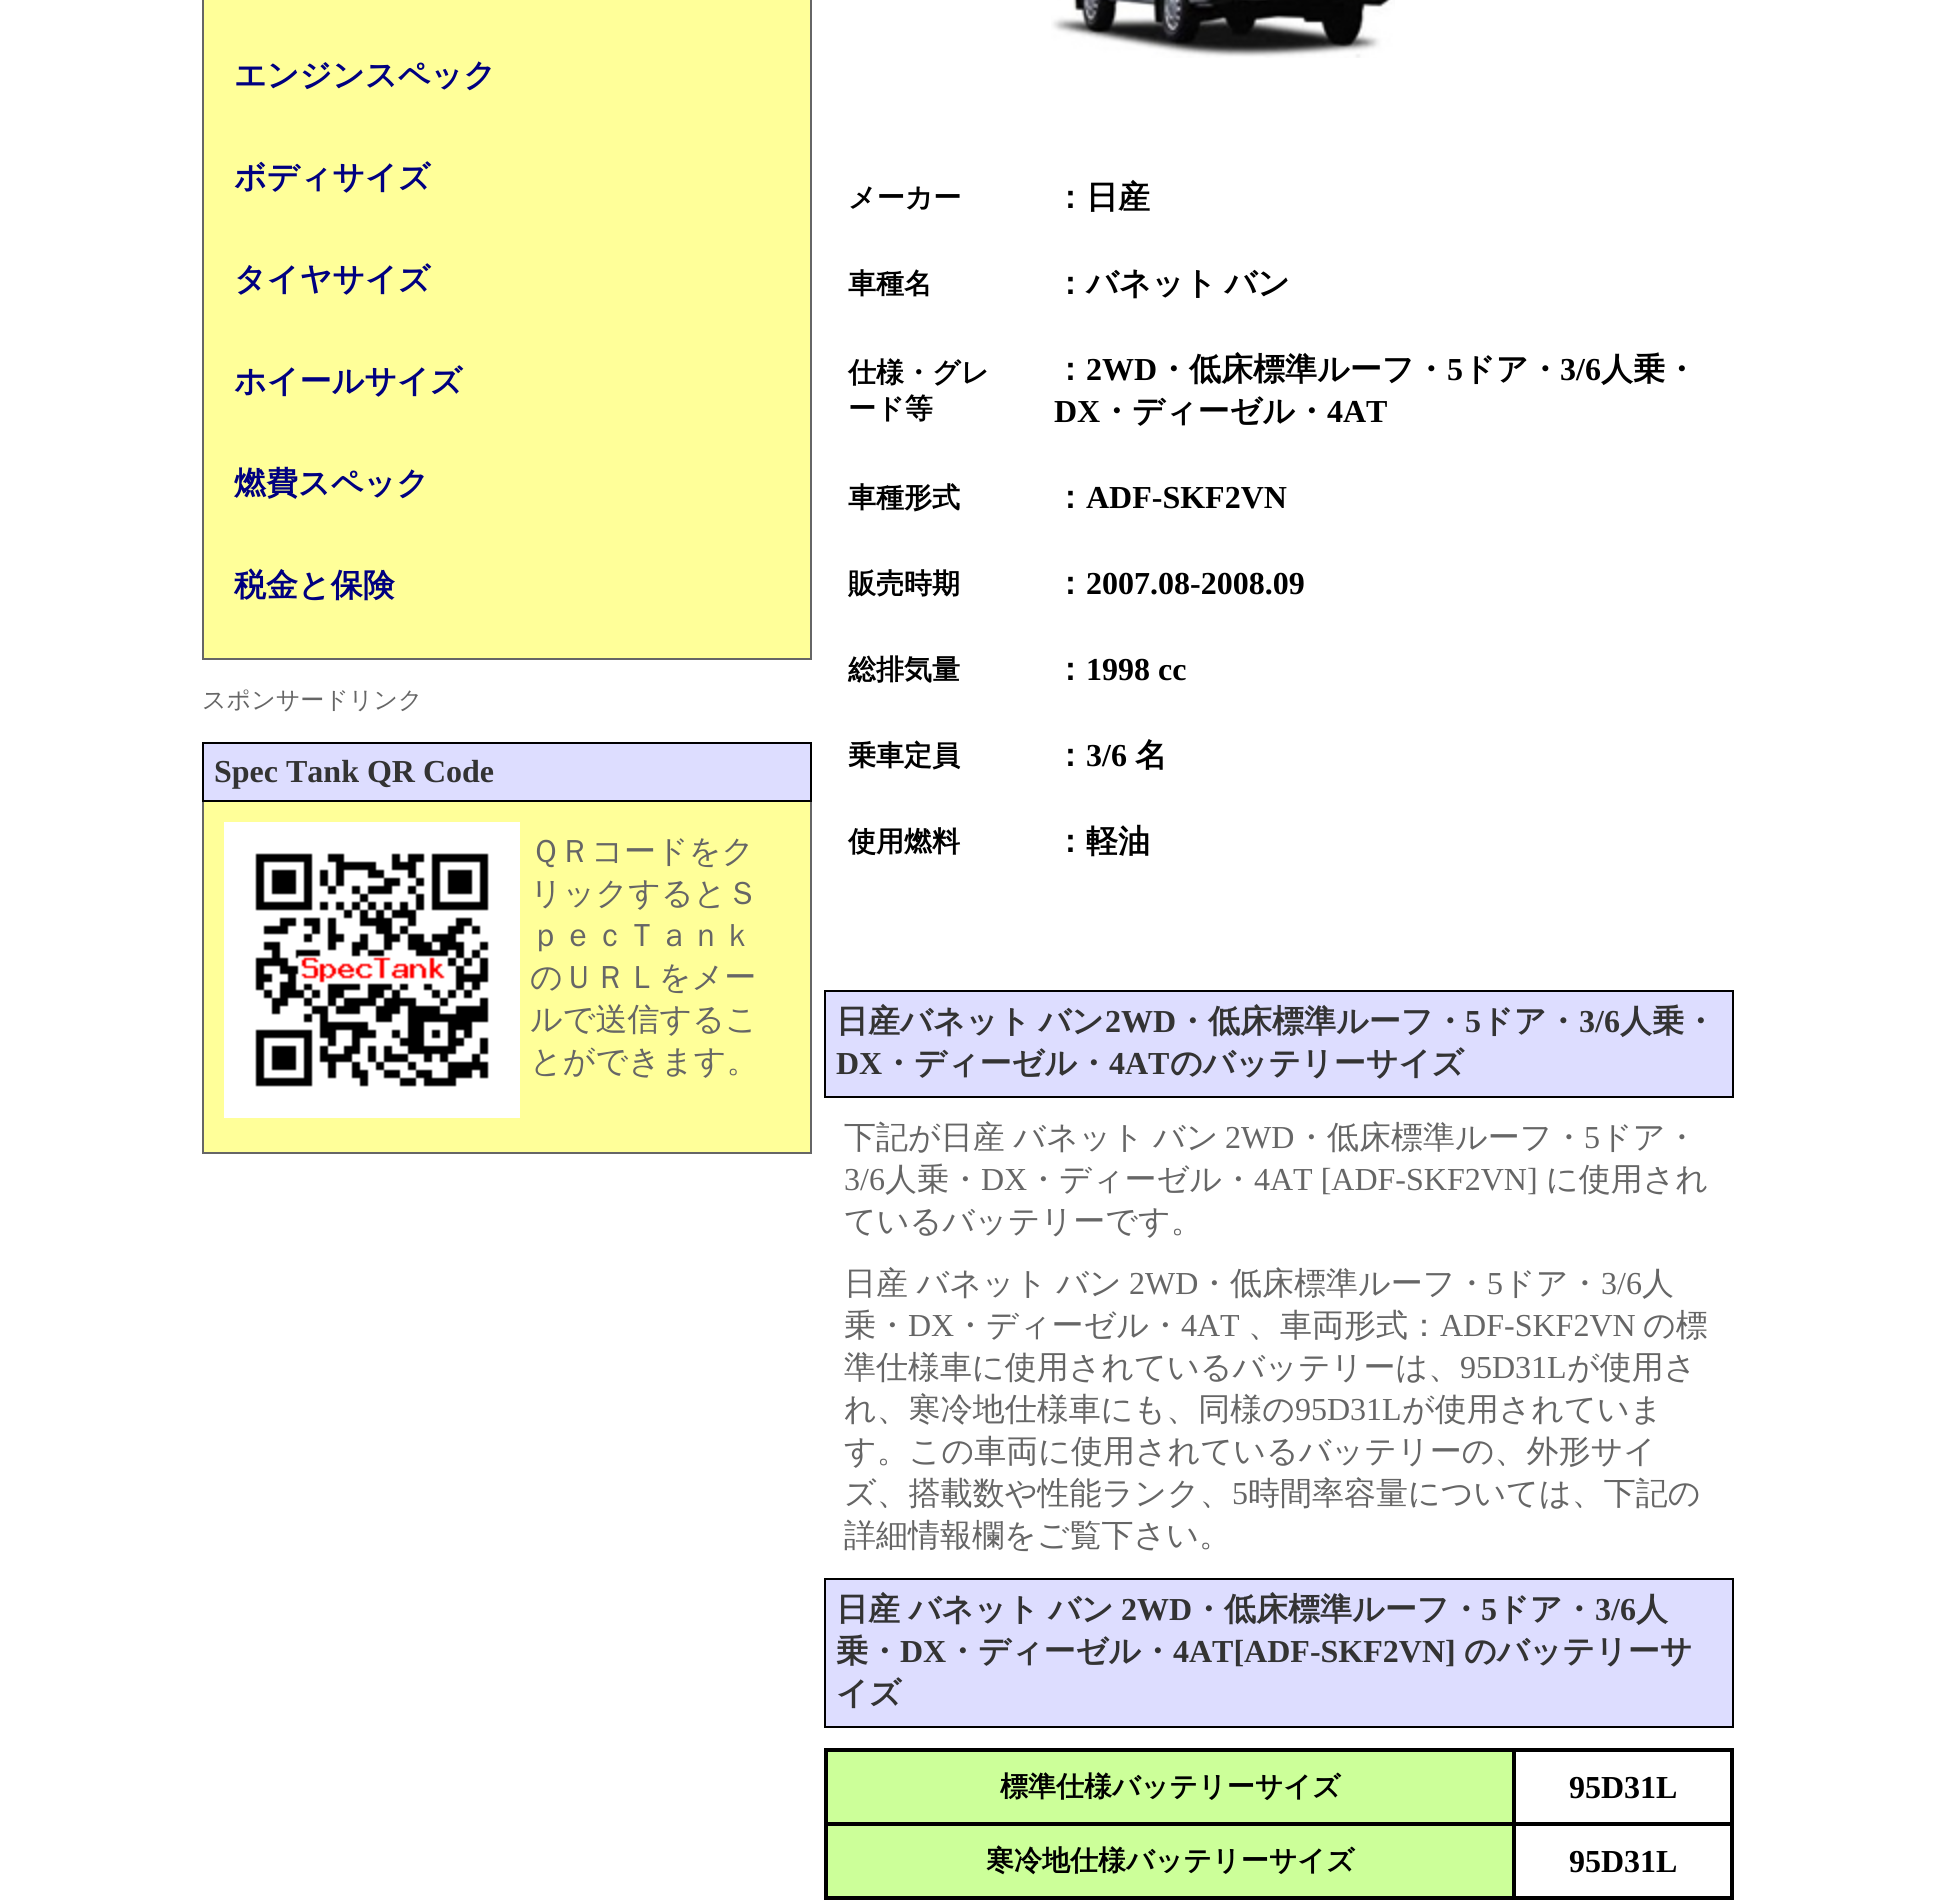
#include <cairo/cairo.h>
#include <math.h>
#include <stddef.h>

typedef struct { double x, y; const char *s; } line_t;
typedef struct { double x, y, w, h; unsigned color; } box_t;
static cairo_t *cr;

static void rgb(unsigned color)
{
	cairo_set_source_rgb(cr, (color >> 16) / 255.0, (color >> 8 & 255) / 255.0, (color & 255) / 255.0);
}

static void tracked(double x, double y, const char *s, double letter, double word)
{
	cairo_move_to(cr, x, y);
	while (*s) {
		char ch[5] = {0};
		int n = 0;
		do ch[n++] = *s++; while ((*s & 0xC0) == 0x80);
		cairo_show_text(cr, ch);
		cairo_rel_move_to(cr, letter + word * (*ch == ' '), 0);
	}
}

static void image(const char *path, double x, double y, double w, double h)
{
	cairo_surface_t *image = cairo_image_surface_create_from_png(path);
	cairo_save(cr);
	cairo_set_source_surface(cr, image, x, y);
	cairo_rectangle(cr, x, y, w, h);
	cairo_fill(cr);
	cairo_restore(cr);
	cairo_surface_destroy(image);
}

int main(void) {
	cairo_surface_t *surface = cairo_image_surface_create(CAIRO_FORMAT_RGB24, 1936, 1901);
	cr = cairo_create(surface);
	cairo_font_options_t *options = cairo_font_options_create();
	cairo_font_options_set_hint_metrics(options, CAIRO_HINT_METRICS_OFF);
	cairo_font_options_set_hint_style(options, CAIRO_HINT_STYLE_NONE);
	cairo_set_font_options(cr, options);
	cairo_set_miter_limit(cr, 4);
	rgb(0xffffff);
	cairo_paint(cr);
	{
		static const box_t items[] = {
			{204, 0, 606, 658, 0xffff99},
			{810, 0, 2, 660, 0x666666},
			{202, 658, 610, 2, 0x666666},
			{202, 0, 2, 660, 0x666666},
		};
		for (size_t i = 0; i < sizeof items / sizeof *items; i++) {
			rgb(items[i].color);
			cairo_rectangle(cr, items[i].x, items[i].y, items[i].w, items[i].h);
			cairo_fill(cr);
		}
	}
	rgb(0xddddff);
	cairo_rectangle(cr, 203, 743, 608, 58);
	cairo_fill_preserve(cr);
	rgb(0x000000);
	cairo_stroke(cr);
	{
		static const box_t items[] = {
			{204, 802, 606, 350, 0xffff99},
			{810, 802, 2, 352, 0x666666},
			{202, 1152, 610, 2, 0x666666},
			{202, 802, 2, 352, 0x666666},
		};
		for (size_t i = 0; i < sizeof items / sizeof *items; i++) {
			rgb(items[i].color);
			cairo_rectangle(cr, items[i].x, items[i].y, items[i].w, items[i].h);
			cairo_fill(cr);
		}
	}
	image("img/1.png", 224, 822, 296, 296);
	image("img/2.png", 1051, 0, 344, 58);
	rgb(0xddddff);
	cairo_rectangle(cr, 825, 991, 908, 106);
	cairo_fill_preserve(cr);
	rgb(0x000000);
	cairo_stroke(cr);
	rgb(0xddddff);
	cairo_rectangle(cr, 825, 1579, 908, 148);
	cairo_fill_preserve(cr);
	rgb(0x000000);
	cairo_stroke(cr);
	cairo_rectangle(cr, 825, 1749, 908, 150);
	cairo_stroke(cr);
	rgb(0xccff99);
	cairo_rectangle(cr, 827, 1751, 686, 72);
	cairo_fill_preserve(cr);
	rgb(0x000000);
	cairo_stroke(cr);
	cairo_rectangle(cr, 1515, 1751, 216, 72);
	cairo_stroke(cr);
	rgb(0xccff99);
	cairo_rectangle(cr, 827, 1825, 686, 72);
	cairo_fill_preserve(cr);
	rgb(0x000000);
	cairo_stroke(cr);
	cairo_rectangle(cr, 1515, 1825, 216, 72);
	cairo_stroke(cr);
	cairo_select_font_face(cr, "WenQuanYi Zen Hei", CAIRO_FONT_SLANT_NORMAL, CAIRO_FONT_WEIGHT_BOLD);
	cairo_set_font_size(cr, 32);
	rgb(0x000080);
	{
		static const line_t items[] = {
			{234, 86, "エンジンスペック"},
			{234, 188, "ボディサイズ"},
			{234, 290, "タイヤサイズ"},
			{234, 392, "ホイールサイズ"},
			{234, 494, "燃費スペック"},
			{234, 596, "税金と保険"},
		};
		for (size_t i = 0; i < sizeof items / sizeof *items; i++) {
			cairo_move_to(cr, items[i].x, items[i].y);
			cairo_show_text(cr, items[i].s);
		}
	}
	cairo_select_font_face(cr, "WenQuanYi Zen Hei Medium", CAIRO_FONT_SLANT_NORMAL, CAIRO_FONT_WEIGHT_NORMAL);
	cairo_set_font_size(cr, 24);
	rgb(0x666666);
	cairo_move_to(cr, 202, 708);
	cairo_show_text(cr, "スポンサードリンク");
	cairo_select_font_face(cr, "Liberation Serif", CAIRO_FONT_SLANT_NORMAL, CAIRO_FONT_WEIGHT_BOLD);
	cairo_set_font_size(cr, 32);
	rgb(0x333333);
	cairo_move_to(cr, 214, 782);
	cairo_show_text(cr, "Spec Tank QR Code");
	cairo_select_font_face(cr, "WenQuanYi Zen Hei Medium", CAIRO_FONT_SLANT_NORMAL, CAIRO_FONT_WEIGHT_NORMAL);
	rgb(0x666666);
	{
		static const line_t items[] = {
			{530, 862, "ＱＲコードをク"},
			{530, 904, "リックするとＳ"},
			{530, 946, "ｐｅｃＴａｎｋ"},
			{530, 988, "のＵＲＬをメー"},
			{530, 1030, "ルで送信するこ"},
			{530, 1072, "とができます。"},
		};
		for (size_t i = 0; i < sizeof items / sizeof *items; i++) {
			cairo_move_to(cr, items[i].x, items[i].y);
			cairo_show_text(cr, items[i].s);
		}
	}
	cairo_select_font_face(cr, "WenQuanYi Zen Hei", CAIRO_FONT_SLANT_NORMAL, CAIRO_FONT_WEIGHT_BOLD);
	cairo_set_font_size(cr, 28);
	rgb(0x000000);
	cairo_move_to(cr, 848, 207);
	cairo_show_text(cr, "メーカー");
	cairo_set_font_size(cr, 32);
	cairo_move_to(cr, 1054, 208);
	cairo_show_text(cr, "：日産");
	cairo_set_font_size(cr, 28);
	cairo_move_to(cr, 848, 293);
	cairo_show_text(cr, "車種名");
	cairo_set_font_size(cr, 32);
	tracked(1054, 294, "：バネット バン", 0, -2);
	cairo_set_font_size(cr, 28);
	cairo_move_to(cr, 848, 382);
	cairo_show_text(cr, "仕様・グレ");
	cairo_move_to(cr, 848, 418);
	cairo_show_text(cr, "ード等");
	cairo_set_font_size(cr, 32);
	cairo_move_to(cr, 1054, 380);
	cairo_show_text(cr, "：");
	cairo_select_font_face(cr, "Liberation Serif", CAIRO_FONT_SLANT_NORMAL, CAIRO_FONT_WEIGHT_BOLD);
	cairo_move_to(cr, 1086, 380);
	cairo_show_text(cr, "2WD");
	cairo_select_font_face(cr, "WenQuanYi Zen Hei", CAIRO_FONT_SLANT_NORMAL, CAIRO_FONT_WEIGHT_BOLD);
	cairo_move_to(cr, 1157, 380);
	cairo_show_text(cr, "・低床標準ルーフ・");
	cairo_select_font_face(cr, "Liberation Serif", CAIRO_FONT_SLANT_NORMAL, CAIRO_FONT_WEIGHT_BOLD);
	cairo_move_to(cr, 1447, 380);
	cairo_show_text(cr, "5");
	cairo_select_font_face(cr, "WenQuanYi Zen Hei", CAIRO_FONT_SLANT_NORMAL, CAIRO_FONT_WEIGHT_BOLD);
	cairo_move_to(cr, 1463, 380);
	cairo_show_text(cr, "ドア・");
	cairo_select_font_face(cr, "Liberation Serif", CAIRO_FONT_SLANT_NORMAL, CAIRO_FONT_WEIGHT_BOLD);
	cairo_move_to(cr, 1560, 380);
	cairo_show_text(cr, "3/6");
	cairo_select_font_face(cr, "WenQuanYi Zen Hei", CAIRO_FONT_SLANT_NORMAL, CAIRO_FONT_WEIGHT_BOLD);
	cairo_move_to(cr, 1601, 380);
	cairo_show_text(cr, "人乗・");
	cairo_select_font_face(cr, "Liberation Serif", CAIRO_FONT_SLANT_NORMAL, CAIRO_FONT_WEIGHT_BOLD);
	cairo_move_to(cr, 1054, 422);
	cairo_show_text(cr, "DX");
	cairo_select_font_face(cr, "WenQuanYi Zen Hei", CAIRO_FONT_SLANT_NORMAL, CAIRO_FONT_WEIGHT_BOLD);
	cairo_move_to(cr, 1100, 422);
	cairo_show_text(cr, "・ディーゼル・");
	cairo_select_font_face(cr, "Liberation Serif", CAIRO_FONT_SLANT_NORMAL, CAIRO_FONT_WEIGHT_BOLD);
	cairo_move_to(cr, 1327, 422);
	cairo_show_text(cr, "4AT");
	cairo_select_font_face(cr, "WenQuanYi Zen Hei", CAIRO_FONT_SLANT_NORMAL, CAIRO_FONT_WEIGHT_BOLD);
	cairo_set_font_size(cr, 28);
	cairo_move_to(cr, 848, 507);
	cairo_show_text(cr, "車種形式");
	cairo_set_font_size(cr, 32);
	cairo_move_to(cr, 1054, 508);
	cairo_show_text(cr, "：");
	cairo_select_font_face(cr, "Liberation Serif", CAIRO_FONT_SLANT_NORMAL, CAIRO_FONT_WEIGHT_BOLD);
	cairo_move_to(cr, 1086, 508);
	cairo_show_text(cr, "ADF-SKF2VN");
	cairo_select_font_face(cr, "WenQuanYi Zen Hei", CAIRO_FONT_SLANT_NORMAL, CAIRO_FONT_WEIGHT_BOLD);
	cairo_set_font_size(cr, 28);
	cairo_move_to(cr, 848, 593);
	cairo_show_text(cr, "販売時期");
	cairo_set_font_size(cr, 32);
	cairo_move_to(cr, 1054, 594);
	cairo_show_text(cr, "：");
	cairo_select_font_face(cr, "Liberation Serif", CAIRO_FONT_SLANT_NORMAL, CAIRO_FONT_WEIGHT_BOLD);
	cairo_move_to(cr, 1086, 594);
	cairo_show_text(cr, "2007.08-2008.09");
	cairo_select_font_face(cr, "WenQuanYi Zen Hei", CAIRO_FONT_SLANT_NORMAL, CAIRO_FONT_WEIGHT_BOLD);
	cairo_set_font_size(cr, 28);
	cairo_move_to(cr, 848, 679);
	cairo_show_text(cr, "総排気量");
	cairo_set_font_size(cr, 32);
	cairo_move_to(cr, 1054, 680);
	cairo_show_text(cr, "：");
	cairo_select_font_face(cr, "Liberation Serif", CAIRO_FONT_SLANT_NORMAL, CAIRO_FONT_WEIGHT_BOLD);
	cairo_move_to(cr, 1086, 680);
	cairo_show_text(cr, "1998 cc");
	cairo_select_font_face(cr, "WenQuanYi Zen Hei", CAIRO_FONT_SLANT_NORMAL, CAIRO_FONT_WEIGHT_BOLD);
	cairo_set_font_size(cr, 28);
	cairo_move_to(cr, 848, 765);
	cairo_show_text(cr, "乗車定員");
	cairo_set_font_size(cr, 32);
	cairo_move_to(cr, 1054, 766);
	cairo_show_text(cr, "：");
	cairo_select_font_face(cr, "Liberation Serif", CAIRO_FONT_SLANT_NORMAL, CAIRO_FONT_WEIGHT_BOLD);
	cairo_move_to(cr, 1086, 766);
	cairo_show_text(cr, "3/6");
	cairo_select_font_face(cr, "WenQuanYi Zen Hei", CAIRO_FONT_SLANT_NORMAL, CAIRO_FONT_WEIGHT_BOLD);
	cairo_move_to(cr, 1135, 766);
	cairo_show_text(cr, "名");
	cairo_set_font_size(cr, 28);
	cairo_move_to(cr, 848, 851);
	cairo_show_text(cr, "使用燃料");
	cairo_set_font_size(cr, 32);
	cairo_move_to(cr, 1054, 852);
	cairo_show_text(cr, "：軽油");
	rgb(0x333333);
	tracked(836, 1032, "日産バネット バン", 0, -2);
	cairo_select_font_face(cr, "Liberation Serif", CAIRO_FONT_SLANT_NORMAL, CAIRO_FONT_WEIGHT_BOLD);
	cairo_move_to(cr, 1105, 1032);
	cairo_show_text(cr, "2WD");
	cairo_select_font_face(cr, "WenQuanYi Zen Hei", CAIRO_FONT_SLANT_NORMAL, CAIRO_FONT_WEIGHT_BOLD);
	cairo_move_to(cr, 1176, 1032);
	cairo_show_text(cr, "・低床標準ルーフ・");
	cairo_select_font_face(cr, "Liberation Serif", CAIRO_FONT_SLANT_NORMAL, CAIRO_FONT_WEIGHT_BOLD);
	cairo_move_to(cr, 1465, 1032);
	cairo_show_text(cr, "5");
	cairo_select_font_face(cr, "WenQuanYi Zen Hei", CAIRO_FONT_SLANT_NORMAL, CAIRO_FONT_WEIGHT_BOLD);
	cairo_move_to(cr, 1481, 1032);
	cairo_show_text(cr, "ドア・");
	cairo_select_font_face(cr, "Liberation Serif", CAIRO_FONT_SLANT_NORMAL, CAIRO_FONT_WEIGHT_BOLD);
	cairo_move_to(cr, 1579, 1032);
	cairo_show_text(cr, "3/6");
	cairo_select_font_face(cr, "WenQuanYi Zen Hei", CAIRO_FONT_SLANT_NORMAL, CAIRO_FONT_WEIGHT_BOLD);
	cairo_move_to(cr, 1620, 1032);
	cairo_show_text(cr, "人乗・");
	cairo_select_font_face(cr, "Liberation Serif", CAIRO_FONT_SLANT_NORMAL, CAIRO_FONT_WEIGHT_BOLD);
	cairo_move_to(cr, 836, 1074);
	cairo_show_text(cr, "DX");
	cairo_select_font_face(cr, "WenQuanYi Zen Hei", CAIRO_FONT_SLANT_NORMAL, CAIRO_FONT_WEIGHT_BOLD);
	cairo_move_to(cr, 882, 1074);
	cairo_show_text(cr, "・ディーゼル・");
	cairo_select_font_face(cr, "Liberation Serif", CAIRO_FONT_SLANT_NORMAL, CAIRO_FONT_WEIGHT_BOLD);
	cairo_move_to(cr, 1109, 1074);
	cairo_show_text(cr, "4AT");
	cairo_select_font_face(cr, "WenQuanYi Zen Hei", CAIRO_FONT_SLANT_NORMAL, CAIRO_FONT_WEIGHT_BOLD);
	cairo_move_to(cr, 1170, 1074);
	cairo_show_text(cr, "のバッテリーサイズ");
	cairo_select_font_face(cr, "WenQuanYi Zen Hei Medium", CAIRO_FONT_SLANT_NORMAL, CAIRO_FONT_WEIGHT_NORMAL);
	rgb(0x666666);
	tracked(844, 1148, "下記が日産 バネット バン", 0, -1);
	cairo_select_font_face(cr, "Liberation Serif", CAIRO_FONT_SLANT_NORMAL, CAIRO_FONT_WEIGHT_NORMAL);
	cairo_move_to(cr, 1225, 1148);
	cairo_show_text(cr, "2WD");
	cairo_select_font_face(cr, "WenQuanYi Zen Hei Medium", CAIRO_FONT_SLANT_NORMAL, CAIRO_FONT_WEIGHT_NORMAL);
	cairo_move_to(cr, 1295, 1148);
	cairo_show_text(cr, "・低床標準ルーフ・");
	cairo_select_font_face(cr, "Liberation Serif", CAIRO_FONT_SLANT_NORMAL, CAIRO_FONT_WEIGHT_NORMAL);
	cairo_move_to(cr, 1584, 1148);
	cairo_show_text(cr, "5");
	cairo_select_font_face(cr, "WenQuanYi Zen Hei Medium", CAIRO_FONT_SLANT_NORMAL, CAIRO_FONT_WEIGHT_NORMAL);
	cairo_move_to(cr, 1600, 1148);
	cairo_show_text(cr, "ドア・");
	cairo_select_font_face(cr, "Liberation Serif", CAIRO_FONT_SLANT_NORMAL, CAIRO_FONT_WEIGHT_NORMAL);
	cairo_move_to(cr, 844, 1190);
	cairo_show_text(cr, "3/6");
	cairo_select_font_face(cr, "WenQuanYi Zen Hei Medium", CAIRO_FONT_SLANT_NORMAL, CAIRO_FONT_WEIGHT_NORMAL);
	cairo_move_to(cr, 885, 1190);
	cairo_show_text(cr, "人乗・");
	cairo_select_font_face(cr, "Liberation Serif", CAIRO_FONT_SLANT_NORMAL, CAIRO_FONT_WEIGHT_NORMAL);
	cairo_move_to(cr, 981, 1190);
	cairo_show_text(cr, "DX");
	cairo_select_font_face(cr, "WenQuanYi Zen Hei Medium", CAIRO_FONT_SLANT_NORMAL, CAIRO_FONT_WEIGHT_NORMAL);
	cairo_move_to(cr, 1027, 1190);
	cairo_show_text(cr, "・ディーゼル・");
	cairo_select_font_face(cr, "Liberation Serif", CAIRO_FONT_SLANT_NORMAL, CAIRO_FONT_WEIGHT_NORMAL);
	cairo_move_to(cr, 1254, 1190);
	cairo_show_text(cr, "4AT [ADF-SKF2VN]");
	cairo_select_font_face(cr, "WenQuanYi Zen Hei Medium", CAIRO_FONT_SLANT_NORMAL, CAIRO_FONT_WEIGHT_NORMAL);
	cairo_move_to(cr, 1546, 1190);
	cairo_show_text(cr, "に使用され");
	cairo_move_to(cr, 844, 1232);
	cairo_show_text(cr, "ているバッテリーです。");
	tracked(844, 1294, "日産 バネット バン", 0, -1);
	cairo_select_font_face(cr, "Liberation Serif", CAIRO_FONT_SLANT_NORMAL, CAIRO_FONT_WEIGHT_NORMAL);
	cairo_move_to(cr, 1129, 1294);
	cairo_show_text(cr, "2WD");
	cairo_select_font_face(cr, "WenQuanYi Zen Hei Medium", CAIRO_FONT_SLANT_NORMAL, CAIRO_FONT_WEIGHT_NORMAL);
	cairo_move_to(cr, 1198, 1294);
	cairo_show_text(cr, "・低床標準ルーフ・");
	cairo_select_font_face(cr, "Liberation Serif", CAIRO_FONT_SLANT_NORMAL, CAIRO_FONT_WEIGHT_NORMAL);
	cairo_move_to(cr, 1487, 1294);
	cairo_show_text(cr, "5");
	cairo_select_font_face(cr, "WenQuanYi Zen Hei Medium", CAIRO_FONT_SLANT_NORMAL, CAIRO_FONT_WEIGHT_NORMAL);
	cairo_move_to(cr, 1503, 1294);
	cairo_show_text(cr, "ドア・");
	cairo_select_font_face(cr, "Liberation Serif", CAIRO_FONT_SLANT_NORMAL, CAIRO_FONT_WEIGHT_NORMAL);
	cairo_move_to(cr, 1601, 1294);
	cairo_show_text(cr, "3/6");
	cairo_select_font_face(cr, "WenQuanYi Zen Hei Medium", CAIRO_FONT_SLANT_NORMAL, CAIRO_FONT_WEIGHT_NORMAL);
	cairo_move_to(cr, 1642, 1294);
	cairo_show_text(cr, "人");
	cairo_move_to(cr, 844, 1336);
	cairo_show_text(cr, "乗・");
	cairo_select_font_face(cr, "Liberation Serif", CAIRO_FONT_SLANT_NORMAL, CAIRO_FONT_WEIGHT_NORMAL);
	cairo_move_to(cr, 908, 1336);
	cairo_show_text(cr, "DX");
	cairo_select_font_face(cr, "WenQuanYi Zen Hei Medium", CAIRO_FONT_SLANT_NORMAL, CAIRO_FONT_WEIGHT_NORMAL);
	cairo_move_to(cr, 954, 1336);
	cairo_show_text(cr, "・ディーゼル・");
	cairo_select_font_face(cr, "Liberation Serif", CAIRO_FONT_SLANT_NORMAL, CAIRO_FONT_WEIGHT_NORMAL);
	cairo_move_to(cr, 1181, 1336);
	cairo_show_text(cr, "4AT");
	cairo_select_font_face(cr, "WenQuanYi Zen Hei Medium", CAIRO_FONT_SLANT_NORMAL, CAIRO_FONT_WEIGHT_NORMAL);
	cairo_move_to(cr, 1248, 1336);
	cairo_show_text(cr, "、車両形式：");
	cairo_select_font_face(cr, "Liberation Serif", CAIRO_FONT_SLANT_NORMAL, CAIRO_FONT_WEIGHT_NORMAL);
	cairo_move_to(cr, 1440, 1336);
	cairo_show_text(cr, "ADF-SKF2VN");
	cairo_select_font_face(cr, "WenQuanYi Zen Hei Medium", CAIRO_FONT_SLANT_NORMAL, CAIRO_FONT_WEIGHT_NORMAL);
	cairo_move_to(cr, 1643, 1336);
	cairo_show_text(cr, "の標");
	cairo_move_to(cr, 844, 1378);
	cairo_show_text(cr, "準仕様車に使用されているバッテリーは、");
	cairo_select_font_face(cr, "Liberation Serif", CAIRO_FONT_SLANT_NORMAL, CAIRO_FONT_WEIGHT_NORMAL);
	cairo_move_to(cr, 1460, 1378);
	cairo_show_text(cr, "95D31L");
	cairo_select_font_face(cr, "WenQuanYi Zen Hei Medium", CAIRO_FONT_SLANT_NORMAL, CAIRO_FONT_WEIGHT_NORMAL);
	cairo_move_to(cr, 1567, 1378);
	cairo_show_text(cr, "が使用さ");
	cairo_move_to(cr, 844, 1420);
	cairo_show_text(cr, "れ、寒冷地仕様車にも、同様の");
	cairo_select_font_face(cr, "Liberation Serif", CAIRO_FONT_SLANT_NORMAL, CAIRO_FONT_WEIGHT_NORMAL);
	cairo_move_to(cr, 1295, 1420);
	cairo_show_text(cr, "95D31L");
	cairo_select_font_face(cr, "WenQuanYi Zen Hei Medium", CAIRO_FONT_SLANT_NORMAL, CAIRO_FONT_WEIGHT_NORMAL);
	{
		static const line_t items[] = {
			{1402, 1420, "が使用されていま"},
			{844, 1462, "す。この車両に使用されているバッテリーの、外形サイ"},
			{844, 1504, "ズ、搭載数や性能ランク、"},
		};
		for (size_t i = 0; i < sizeof items / sizeof *items; i++) {
			cairo_move_to(cr, items[i].x, items[i].y);
			cairo_show_text(cr, items[i].s);
		}
	}
	cairo_select_font_face(cr, "Liberation Serif", CAIRO_FONT_SLANT_NORMAL, CAIRO_FONT_WEIGHT_NORMAL);
	cairo_move_to(cr, 1232, 1504);
	cairo_show_text(cr, "5");
	cairo_select_font_face(cr, "WenQuanYi Zen Hei Medium", CAIRO_FONT_SLANT_NORMAL, CAIRO_FONT_WEIGHT_NORMAL);
	cairo_move_to(cr, 1248, 1504);
	cairo_show_text(cr, "時間率容量については、下記の");
	cairo_move_to(cr, 844, 1546);
	cairo_show_text(cr, "詳細情報欄をご覧下さい。");
	cairo_select_font_face(cr, "WenQuanYi Zen Hei", CAIRO_FONT_SLANT_NORMAL, CAIRO_FONT_WEIGHT_BOLD);
	rgb(0x333333);
	tracked(836, 1620, "日産 バネット バン", 0, -1);
	cairo_select_font_face(cr, "Liberation Serif", CAIRO_FONT_SLANT_NORMAL, CAIRO_FONT_WEIGHT_BOLD);
	cairo_move_to(cr, 1121, 1620);
	cairo_show_text(cr, "2WD");
	cairo_select_font_face(cr, "WenQuanYi Zen Hei", CAIRO_FONT_SLANT_NORMAL, CAIRO_FONT_WEIGHT_BOLD);
	cairo_move_to(cr, 1192, 1620);
	cairo_show_text(cr, "・低床標準ルーフ・");
	cairo_select_font_face(cr, "Liberation Serif", CAIRO_FONT_SLANT_NORMAL, CAIRO_FONT_WEIGHT_BOLD);
	cairo_move_to(cr, 1481, 1620);
	cairo_show_text(cr, "5");
	cairo_select_font_face(cr, "WenQuanYi Zen Hei", CAIRO_FONT_SLANT_NORMAL, CAIRO_FONT_WEIGHT_BOLD);
	cairo_move_to(cr, 1497, 1620);
	cairo_show_text(cr, "ドア・");
	cairo_select_font_face(cr, "Liberation Serif", CAIRO_FONT_SLANT_NORMAL, CAIRO_FONT_WEIGHT_BOLD);
	cairo_move_to(cr, 1595, 1620);
	cairo_show_text(cr, "3/6");
	cairo_select_font_face(cr, "WenQuanYi Zen Hei", CAIRO_FONT_SLANT_NORMAL, CAIRO_FONT_WEIGHT_BOLD);
	cairo_move_to(cr, 1636, 1620);
	cairo_show_text(cr, "人");
	cairo_move_to(cr, 836, 1662);
	cairo_show_text(cr, "乗・");
	cairo_select_font_face(cr, "Liberation Serif", CAIRO_FONT_SLANT_NORMAL, CAIRO_FONT_WEIGHT_BOLD);
	cairo_move_to(cr, 900, 1662);
	cairo_show_text(cr, "DX");
	cairo_select_font_face(cr, "WenQuanYi Zen Hei", CAIRO_FONT_SLANT_NORMAL, CAIRO_FONT_WEIGHT_BOLD);
	cairo_move_to(cr, 946, 1662);
	cairo_show_text(cr, "・ディーゼル・");
	cairo_select_font_face(cr, "Liberation Serif", CAIRO_FONT_SLANT_NORMAL, CAIRO_FONT_WEIGHT_BOLD);
	cairo_move_to(cr, 1173, 1662);
	cairo_show_text(cr, "4AT[ADF-SKF2VN]");
	cairo_select_font_face(cr, "WenQuanYi Zen Hei", CAIRO_FONT_SLANT_NORMAL, CAIRO_FONT_WEIGHT_BOLD);
	cairo_move_to(cr, 1464, 1662);
	cairo_show_text(cr, "のバッテリーサ");
	cairo_move_to(cr, 836, 1704);
	cairo_show_text(cr, "イズ");
	cairo_set_font_size(cr, 28);
	rgb(0x000000);
	cairo_move_to(cr, 1000, 1796);
	cairo_show_text(cr, "標準仕様バッテリーサイズ");
	cairo_select_font_face(cr, "Liberation Serif", CAIRO_FONT_SLANT_NORMAL, CAIRO_FONT_WEIGHT_BOLD);
	cairo_set_font_size(cr, 32);
	cairo_move_to(cr, 1569, 1798);
	cairo_show_text(cr, "95D31L");
	cairo_select_font_face(cr, "WenQuanYi Zen Hei", CAIRO_FONT_SLANT_NORMAL, CAIRO_FONT_WEIGHT_BOLD);
	cairo_set_font_size(cr, 28);
	cairo_move_to(cr, 986, 1870);
	cairo_show_text(cr, "寒冷地仕様バッテリーサイズ");
	cairo_select_font_face(cr, "Liberation Serif", CAIRO_FONT_SLANT_NORMAL, CAIRO_FONT_WEIGHT_BOLD);
	cairo_set_font_size(cr, 32);
	cairo_move_to(cr, 1569, 1872);
	cairo_show_text(cr, "95D31L");
	cairo_surface_write_to_png(surface, "page.png");
	cairo_font_options_destroy(options);
	cairo_destroy(cr);
	cairo_surface_destroy(surface);
	return 0;
}
